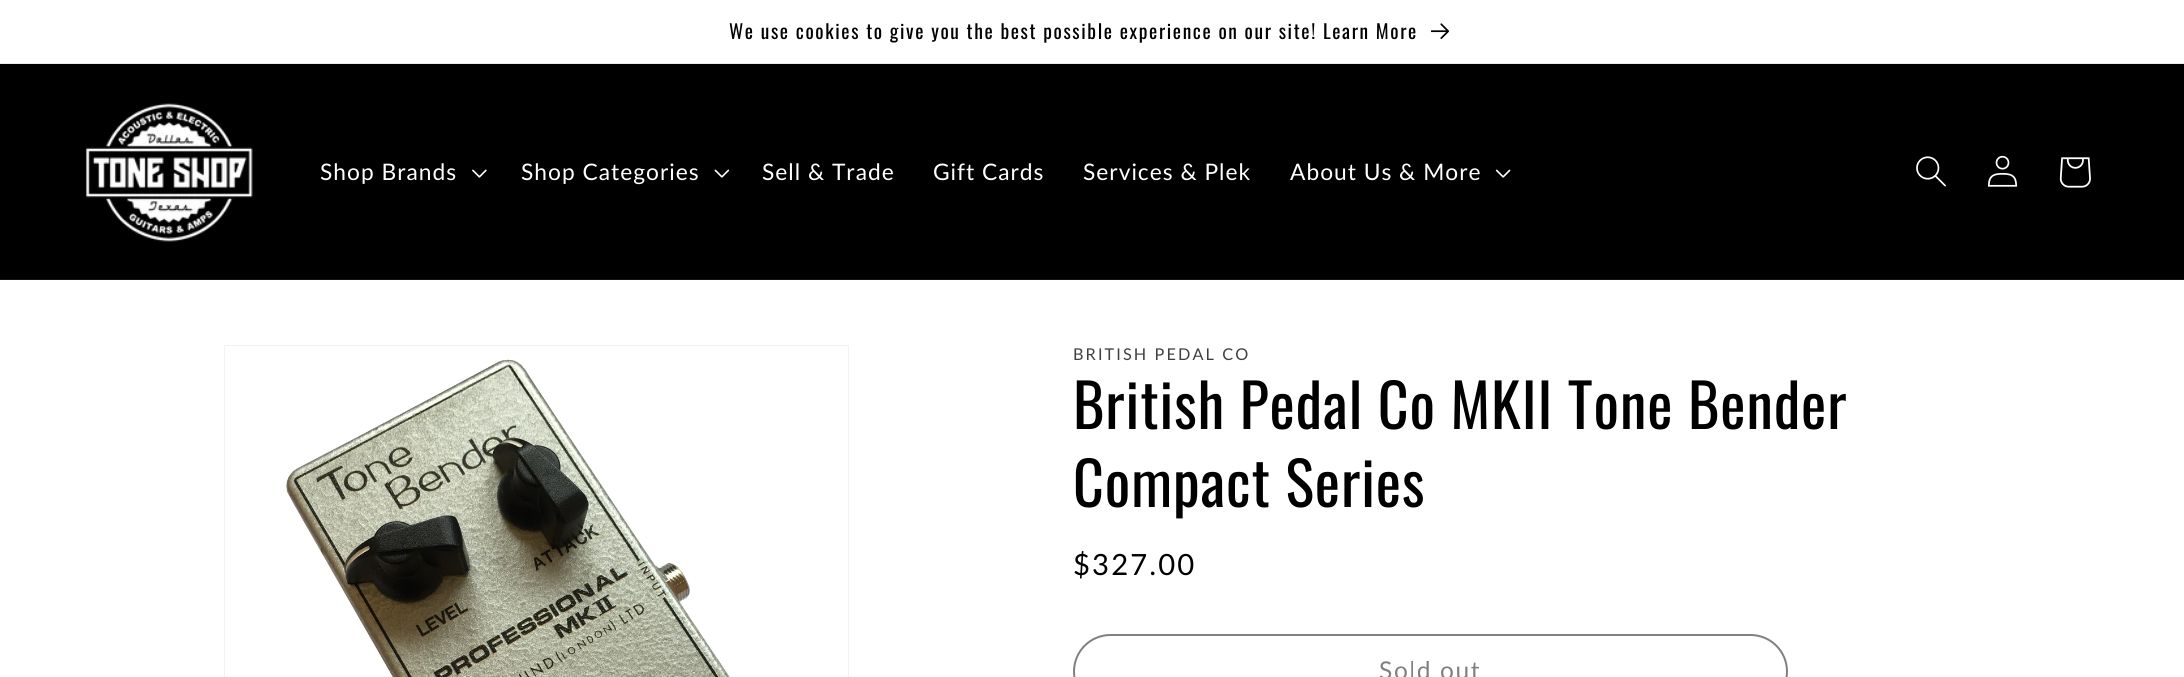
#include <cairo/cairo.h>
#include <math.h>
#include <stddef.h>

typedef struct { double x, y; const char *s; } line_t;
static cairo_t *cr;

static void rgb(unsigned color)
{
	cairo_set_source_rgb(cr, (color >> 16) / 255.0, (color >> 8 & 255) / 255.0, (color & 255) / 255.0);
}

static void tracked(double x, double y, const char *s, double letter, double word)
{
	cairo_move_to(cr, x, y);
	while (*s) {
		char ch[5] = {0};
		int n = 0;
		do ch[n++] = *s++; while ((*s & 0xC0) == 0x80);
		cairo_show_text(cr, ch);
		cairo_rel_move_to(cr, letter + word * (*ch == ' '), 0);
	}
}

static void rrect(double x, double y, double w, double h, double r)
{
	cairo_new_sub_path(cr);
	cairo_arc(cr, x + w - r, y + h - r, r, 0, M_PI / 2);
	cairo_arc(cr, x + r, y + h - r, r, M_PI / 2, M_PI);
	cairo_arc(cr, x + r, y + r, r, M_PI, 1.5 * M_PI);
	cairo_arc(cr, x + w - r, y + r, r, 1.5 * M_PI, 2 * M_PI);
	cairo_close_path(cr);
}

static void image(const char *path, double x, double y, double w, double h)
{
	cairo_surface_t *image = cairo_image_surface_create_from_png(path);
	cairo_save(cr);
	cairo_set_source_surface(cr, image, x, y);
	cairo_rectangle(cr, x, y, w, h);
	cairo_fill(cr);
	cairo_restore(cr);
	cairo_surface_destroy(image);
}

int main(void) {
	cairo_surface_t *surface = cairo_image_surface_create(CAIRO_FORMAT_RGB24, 2184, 677);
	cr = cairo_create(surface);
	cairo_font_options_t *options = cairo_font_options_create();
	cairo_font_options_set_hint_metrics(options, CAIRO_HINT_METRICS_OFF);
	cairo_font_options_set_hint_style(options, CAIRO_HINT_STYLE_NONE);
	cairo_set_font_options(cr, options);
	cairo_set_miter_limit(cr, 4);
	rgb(0xffffff);
	cairo_paint(cr);
	rgb(0xebebeb);
	cairo_rectangle(cr, 0, 63, 2184, 1);
	cairo_fill(cr);
	image("img/1.png", 1431, 23, 18, 16);
	rgb(0x000000);
	cairo_rectangle(cr, 0, 64, 2184, 215);
	cairo_fill(cr);
	rgb(0x141414);
	cairo_rectangle(cr, 0, 279, 2184, 1);
	cairo_fill(cr);
	image("img/2.png", 85, 103, 168, 139);
	image("img/3.png", 472, 169, 15, 9);
	image("img/4.png", 714, 169, 16, 9);
	image("img/5.png", 1495, 169, 16, 9);
	image("img/6.png", 1916, 156, 30, 31);
	image("img/7.png", 1987, 155, 31, 32);
	image("img/8.png", 2059, 157, 32, 31);
	cairo_rectangle(cr, 224.5, 345.5, 624, 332);
	rgb(0xf2f2f2);
	cairo_set_line_width(cr, 1);
	cairo_stroke(cr);
	image("img/9.png", 286, 359, 444, 318);
	rrect(1074, 635, 713, 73, 36.5);
	rgb(0x808080);
	cairo_set_line_width(cr, 2);
	cairo_stroke(cr);
	cairo_select_font_face(cr, "Oswald", CAIRO_FONT_SLANT_NORMAL, CAIRO_FONT_WEIGHT_NORMAL);
	cairo_set_font_size(cr, 19.5);
	rgb(0x000000);
	tracked(729, 39, "We use cookies to give you the best possible experience on our site! Learn More", 1.62, 0);
	cairo_select_font_face(cr, "Lato", CAIRO_FONT_SLANT_NORMAL, CAIRO_FONT_WEIGHT_NORMAL);
	cairo_set_font_size(cr, 22.75);
	rgb(0xffffff);
	{
		static const line_t items[] = {
			{320, 180, "Shop Brands"},
			{521, 180, "Shop Categories"},
			{762, 180, "Sell & Trade"},
			{933, 180, "Gift Cards"},
			{1083, 180, "Services & Plek"},
			{1290, 180, "About Us & More"},
		};
		for (size_t i = 0; i < sizeof items / sizeof *items; i++) {
			tracked(items[i].x, items[i].y, items[i].s, 1, 0);
		}
	}
	cairo_set_font_size(cr, 16.25);
	rgb(0x404040);
	tracked(1073, 360, "BRITISH PEDAL CO", 2.1, 0);
	cairo_select_font_face(cr, "Oswald", CAIRO_FONT_SLANT_NORMAL, CAIRO_FONT_WEIGHT_NORMAL);
	cairo_set_font_size(cr, 60);
	rgb(0x000000);
	tracked(1073, 429, "British Pedal Co MKII Tone Bender", 0.9, 0);
	tracked(1073, 507, "Compact Series", 0.9, 0);
	cairo_select_font_face(cr, "Lato", CAIRO_FONT_SLANT_NORMAL, CAIRO_FONT_WEIGHT_NORMAL);
	cairo_set_font_size(cr, 29.25);
	tracked(1073, 575, "$327.00", 2.1, 0);
	cairo_set_font_size(cr, 24.5);
	rgb(0x808080);
	tracked(1379, 679, "Sold out", 1.62, 0);
	cairo_surface_write_to_png(surface, "page.png");
	cairo_font_options_destroy(options);
	cairo_destroy(cr);
	cairo_surface_destroy(surface);
	return 0;
}
